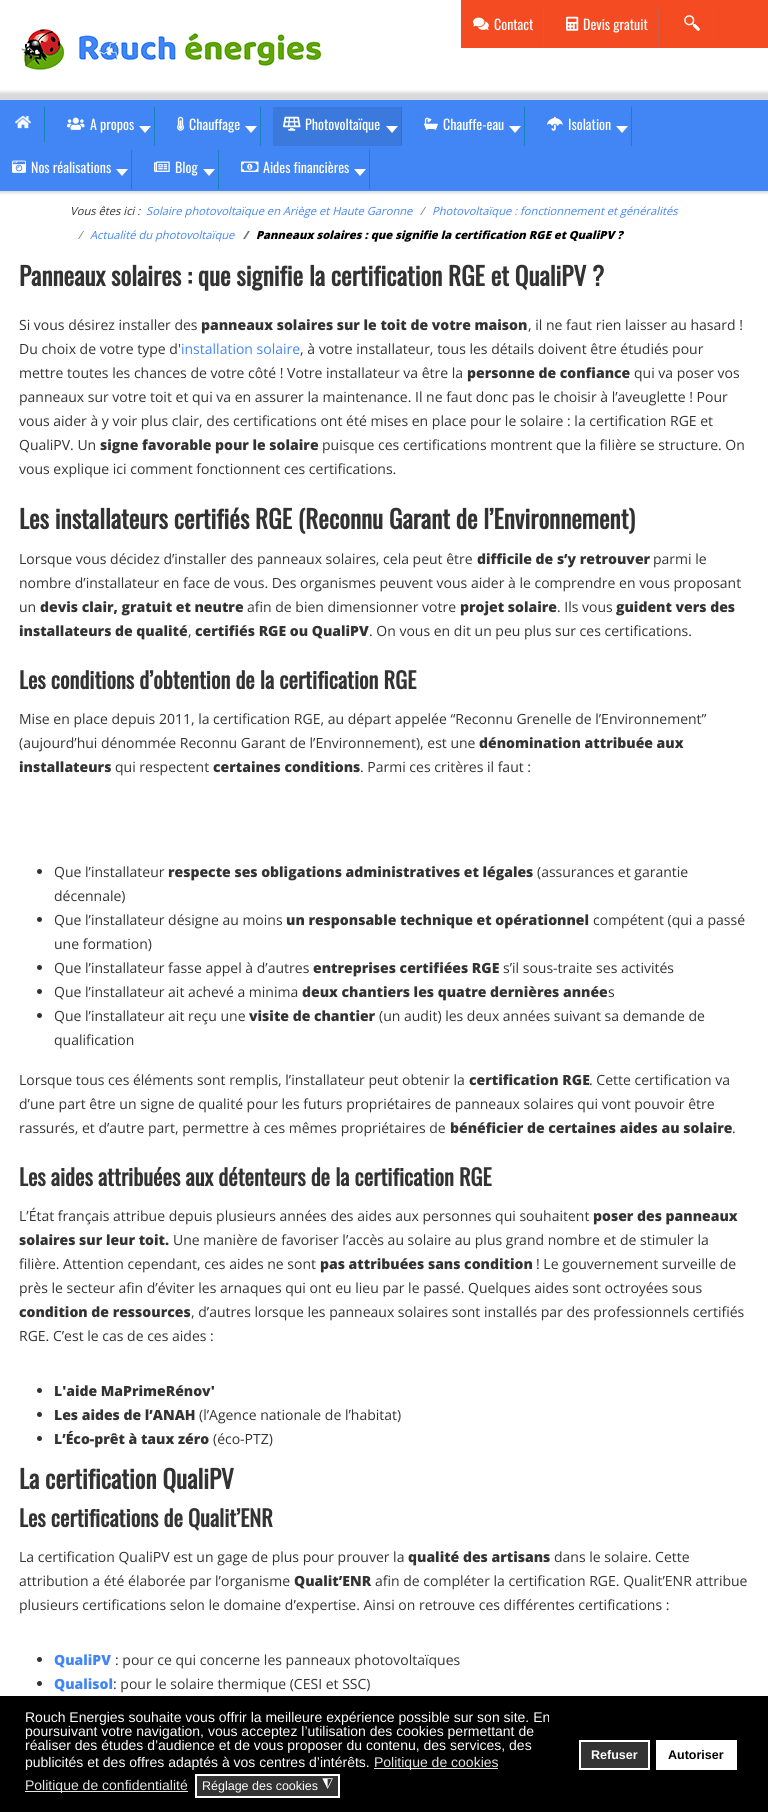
#include <cairo/cairo.h>
#include <math.h>
#include <stddef.h>

typedef struct { double x, y; const char *s; } line_t;
typedef struct { double x, y, w, h; unsigned color; } box_t;
static cairo_t *cr;

static void rgb(unsigned color)
{
	cairo_set_source_rgb(cr, (color >> 16) / 255.0, (color >> 8 & 255) / 255.0, (color & 255) / 255.0);
}

static void rrect(double x, double y, double w, double h, double r)
{
	cairo_new_sub_path(cr);
	cairo_arc(cr, x + w - r, y + h - r, r, 0, M_PI / 2);
	cairo_arc(cr, x + r, y + h - r, r, M_PI / 2, M_PI);
	cairo_arc(cr, x + r, y + r, r, M_PI, 1.5 * M_PI);
	cairo_arc(cr, x + w - r, y + r, r, 1.5 * M_PI, 2 * M_PI);
	cairo_close_path(cr);
}

static void soft_shadow(double x, double y, double w, double h, double r, double blur, double alpha)
{
	cairo_push_group_with_content(cr, CAIRO_CONTENT_ALPHA);
	cairo_set_operator(cr, CAIRO_OPERATOR_SOURCE);
	for (int i = 15; i >= -15 && fmin(w, h) + blur * i / 3 > 0; i -= 2) {
		double e = blur * i / 6;
		cairo_set_source_rgba(cr, 0, 0, 0, alpha * erfc((i - 1) / 8.5) / 2);
		rrect(x - e, y - e, w + 2 * e, h + 2 * e, fmax(0, fmin(r + e + blur * .6, fmin(w, h) / 2 + e)));
		cairo_fill(cr);
	}
	cairo_pattern_t *soft = cairo_pop_group(cr);
	cairo_mask(cr, soft);
	cairo_pattern_destroy(soft);
}

static void image(const char *path, double x, double y, double w, double h)
{
	cairo_surface_t *image = cairo_image_surface_create_from_png(path);
	cairo_save(cr);
	cairo_set_source_surface(cr, image, x, y);
	cairo_rectangle(cr, x, y, w, h);
	cairo_fill(cr);
	cairo_restore(cr);
	cairo_surface_destroy(image);
}

int main(void) {
	cairo_surface_t *surface = cairo_image_surface_create(CAIRO_FORMAT_RGB24, 768, 1812);
	cr = cairo_create(surface);
	cairo_font_options_t *options = cairo_font_options_create();
	cairo_font_options_set_hint_metrics(options, CAIRO_HINT_METRICS_OFF);
	cairo_font_options_set_hint_style(options, CAIRO_HINT_STYLE_NONE);
	cairo_set_font_options(cr, options);
	cairo_set_miter_limit(cr, 4);
	rgb(0xffffff);
	cairo_paint(cr);
	rgb(0xf44b23);
	cairo_rectangle(cr, 461, 0, 307, 48);
	cairo_fill(cr);
	rgb(0xd15c45);
	cairo_rectangle(cr, 543, 7, 1, 39);
	cairo_fill(cr);
	image("img/1.png", 473, 17, 16, 13);
	cairo_rectangle(cr, 658, 7, 1, 39);
	cairo_fill(cr);
	image("img/2.png", 566, 16, 13, 15);
	cairo_rectangle(cr, 713, 7, 1, 37);
	cairo_fill(cr);
	image("img/3.png", 684, 15, 16, 16);
	image("img/4.png", 21, 29, 301, 41);
	rgb(0x020303);
	soft_shadow(-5, 92, 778, 101, 0, 1.5, 0.15);
	rgb(0x4286f5);
	cairo_rectangle(cr, 0, 100, 768, 91);
	cairo_fill(cr);
	rgb(0x1682ba);
	cairo_rectangle(cr, 44, 107, 1, 35);
	cairo_fill(cr);
	image("img/5.png", 15, 115, 16, 14);
	cairo_rectangle(cr, 154, 107, 1, 39);
	cairo_fill(cr);
	image("img/6.png", 67, 117, 18, 13);
	rgb(0xffffff);
	cairo_new_path(cr);
	cairo_move_to(cr, 139, 126);
	cairo_line_to(cr, 151, 126);
	cairo_line_to(cr, 145, 133);
	cairo_close_path(cr);
	cairo_fill(cr);
	rgb(0x1682ba);
	cairo_rectangle(cr, 260, 107, 1, 39);
	cairo_fill(cr);
	image("img/7.png", 177, 116, 7, 15);
	rgb(0xffffff);
	cairo_new_path(cr);
	cairo_move_to(cr, 245, 126);
	cairo_line_to(cr, 257, 126);
	cairo_line_to(cr, 251, 133);
	cairo_close_path(cr);
	cairo_fill(cr);
	rgb(0x3b79dd);
	cairo_rectangle(cr, 273, 107, 128, 39);
	cairo_fill(cr);
	rgb(0x1682ba);
	cairo_rectangle(cr, 401, 107, 1, 39);
	cairo_fill(cr);
	image("img/8.png", 283, 116, 18, 15);
	rgb(0xffffff);
	cairo_new_path(cr);
	cairo_move_to(cr, 386, 126);
	cairo_line_to(cr, 398, 126);
	cairo_line_to(cr, 392, 133);
	cairo_close_path(cr);
	cairo_fill(cr);
	rgb(0x1682ba);
	cairo_rectangle(cr, 524, 107, 1, 39);
	cairo_fill(cr);
	image("img/9.png", 424, 117, 14, 13);
	rgb(0xffffff);
	cairo_new_path(cr);
	cairo_move_to(cr, 509, 126);
	cairo_line_to(cr, 521, 126);
	cairo_line_to(cr, 515, 133);
	cairo_close_path(cr);
	cairo_fill(cr);
	rgb(0x1682ba);
	cairo_rectangle(cr, 631, 107, 1, 39);
	cairo_fill(cr);
	image("img/10.png", 547, 116, 16, 15);
	rgb(0xffffff);
	cairo_new_path(cr);
	cairo_move_to(cr, 616, 126);
	cairo_line_to(cr, 628, 126);
	cairo_line_to(cr, 622, 133);
	cairo_close_path(cr);
	cairo_fill(cr);
	rgb(0x1682ba);
	cairo_rectangle(cr, 131, 150, 1, 39);
	cairo_fill(cr);
	image("img/11.png", 12, 160, 14, 13);
	rgb(0xffffff);
	cairo_new_path(cr);
	cairo_move_to(cr, 116, 169);
	cairo_line_to(cr, 128, 169);
	cairo_line_to(cr, 122, 176);
	cairo_close_path(cr);
	cairo_fill(cr);
	rgb(0x1682ba);
	cairo_rectangle(cr, 218, 150, 1, 39);
	cairo_fill(cr);
	image("img/12.png", 154, 161, 16, 11);
	rgb(0xffffff);
	cairo_new_path(cr);
	cairo_move_to(cr, 203, 169);
	cairo_line_to(cr, 215, 169);
	cairo_line_to(cr, 209, 176);
	cairo_close_path(cr);
	cairo_fill(cr);
	rgb(0x1682ba);
	cairo_rectangle(cr, 369, 150, 1, 39);
	cairo_fill(cr);
	image("img/13.png", 241, 161, 18, 11);
	rgb(0xffffff);
	cairo_new_path(cr);
	cairo_move_to(cr, 354, 169);
	cairo_line_to(cr, 366, 169);
	cairo_line_to(cr, 360, 176);
	cairo_close_path(cr);
	cairo_fill(cr);
	rgb(0x333333);
	cairo_arc(cr, 39.5, 871.5, 2.5, 0, 2 * M_PI);
	cairo_fill(cr);
	cairo_arc(cr, 39.5, 919.5, 2.5, 0, 2 * M_PI);
	cairo_fill(cr);
	cairo_arc(cr, 39.5, 967.5, 2.5, 0, 2 * M_PI);
	cairo_fill(cr);
	cairo_arc(cr, 39.5, 991.5, 2.5, 0, 2 * M_PI);
	cairo_fill(cr);
	cairo_arc(cr, 39.5, 1015.5, 2.5, 0, 2 * M_PI);
	cairo_fill(cr);
	cairo_arc(cr, 39.5, 1390.5, 2.5, 0, 2 * M_PI);
	cairo_fill(cr);
	cairo_arc(cr, 39.5, 1414.5, 2.5, 0, 2 * M_PI);
	cairo_fill(cr);
	cairo_arc(cr, 39.5, 1438.5, 2.5, 0, 2 * M_PI);
	cairo_fill(cr);
	cairo_arc(cr, 39.5, 1659.5, 2.5, 0, 2 * M_PI);
	cairo_fill(cr);
	cairo_arc(cr, 39.5, 1683.5, 2.5, 0, 2 * M_PI);
	cairo_fill(cr);
	{
		static const box_t items[] = {
			{0, 1696, 768, 116, 0x000000},
			{374, 1768, 124, 1, 0xe6e6e6},
			{25, 1791, 163, 1, 0xe6e6e6},
		};
		for (size_t i = 0; i < sizeof items / sizeof *items; i++) {
			rgb(items[i].color);
			cairo_rectangle(cr, items[i].x, items[i].y, items[i].w, items[i].h);
			cairo_fill(cr);
		}
	}
	rgb(0x333333);
	cairo_rectangle(cr, 196, 1775, 143, 22);
	cairo_fill_preserve(cr);
	rgb(0xffffff);
	cairo_stroke(cr);
	rgb(0x333333);
	cairo_rectangle(cr, 580, 1741, 69, 28);
	cairo_fill_preserve(cr);
	rgb(0xffffff);
	cairo_stroke(cr);
	cairo_rectangle(cr, 656, 1740, 81, 30);
	cairo_fill(cr);
	cairo_select_font_face(cr, "Oswald", CAIRO_FONT_SLANT_NORMAL, CAIRO_FONT_WEIGHT_NORMAL);
	cairo_set_font_size(cr, 14);
	{
		static const line_t items[] = {
			{494, 30, "Contact"},
			{583, 30, "Devis gratuit"},
			{90, 130, "A propos"},
			{189, 130, "Chauffage"},
			{305, 130, "Photovoltaïque"},
			{443, 130, "Chauffe-eau"},
			{568, 130, "Isolation"},
			{31, 173, "Nos réalisations"},
			{175, 173, "Blog"},
			{263, 173, "Aides financières"},
		};
		for (size_t i = 0; i < sizeof items / sizeof *items; i++) {
			cairo_move_to(cr, items[i].x, items[i].y);
			cairo_show_text(cr, items[i].s);
		}
	}
	cairo_select_font_face(cr, "Open Sans", CAIRO_FONT_SLANT_ITALIC, CAIRO_FONT_WEIGHT_NORMAL);
	cairo_set_font_size(cr, 11.2);
	rgb(0x333333);
	cairo_move_to(cr, 70, 215);
	cairo_show_text(cr, "Vous êtes ici :");
	rgb(0x4286f5);
	cairo_move_to(cr, 146, 215);
	cairo_show_text(cr, "Solaire photovoltaïque en Ariège et Haute Garonne");
	rgb(0x6d757e);
	cairo_move_to(cr, 420, 215);
	cairo_show_text(cr, "/");
	rgb(0x4286f5);
	cairo_move_to(cr, 432, 215);
	cairo_show_text(cr, "Photovoltaïque : fonctionnement et généralités");
	rgb(0x6d757e);
	cairo_move_to(cr, 78, 239);
	cairo_show_text(cr, "/");
	rgb(0x4286f5);
	cairo_move_to(cr, 90, 239);
	cairo_show_text(cr, "Actualité du photovoltaïque");
	cairo_select_font_face(cr, "Open Sans ExtraBold", CAIRO_FONT_SLANT_ITALIC, CAIRO_FONT_WEIGHT_NORMAL);
	rgb(0x6d757e);
	cairo_move_to(cr, 243, 239);
	cairo_show_text(cr, "/");
	rgb(0x000000);
	cairo_move_to(cr, 256, 239);
	cairo_show_text(cr, "Panneaux solaires : que signifie la certification RGE et QualiPV ?");
	cairo_select_font_face(cr, "Oswald", CAIRO_FONT_SLANT_NORMAL, CAIRO_FONT_WEIGHT_BOLD);
	cairo_set_font_size(cr, 25.2);
	rgb(0x333333);
	cairo_move_to(cr, 19, 286);
	cairo_show_text(cr, "Panneaux solaires : que signifie la certification RGE et QualiPV ?");
	cairo_select_font_face(cr, "Open Sans", CAIRO_FONT_SLANT_NORMAL, CAIRO_FONT_WEIGHT_NORMAL);
	cairo_set_font_size(cr, 14);
	cairo_move_to(cr, 19, 330);
	cairo_show_text(cr, "Si vous désirez installer des");
	cairo_select_font_face(cr, "Open Sans ExtraBold", CAIRO_FONT_SLANT_NORMAL, CAIRO_FONT_WEIGHT_NORMAL);
	cairo_move_to(cr, 201, 330);
	cairo_show_text(cr, "panneaux solaires sur le toit de votre maison");
	cairo_select_font_face(cr, "Open Sans", CAIRO_FONT_SLANT_NORMAL, CAIRO_FONT_WEIGHT_NORMAL);
	cairo_move_to(cr, 528, 330);
	cairo_show_text(cr, ", il ne faut rien laisser au hasard !");
	cairo_move_to(cr, 19, 354);
	cairo_show_text(cr, "Du choix de votre type d'");
	rgb(0x4286f5);
	cairo_move_to(cr, 181, 354);
	cairo_show_text(cr, "installation solaire");
	rgb(0x333333);
	cairo_move_to(cr, 300, 354);
	cairo_show_text(cr, ", à votre installateur, tous les détails doivent être étudiés pour");
	cairo_move_to(cr, 19, 378);
	cairo_show_text(cr, "mettre toutes les chances de votre côté ! Votre installateur va être la");
	cairo_select_font_face(cr, "Open Sans ExtraBold", CAIRO_FONT_SLANT_NORMAL, CAIRO_FONT_WEIGHT_NORMAL);
	cairo_move_to(cr, 467, 378);
	cairo_show_text(cr, "personne de confiance");
	cairo_select_font_face(cr, "Open Sans", CAIRO_FONT_SLANT_NORMAL, CAIRO_FONT_WEIGHT_NORMAL);
	{
		static const line_t items[] = {
			{634, 378, "qui va poser vos"},
			{19, 402, "panneaux sur votre toit et qui va en assurer la maintenance. Il ne faut donc pas le choisir à l’aveuglette ! Pour"},
			{19, 426, "vous aider à y voir plus clair, des certifications ont été mises en place pour le solaire : la certification RGE et"},
			{19, 450, "QualiPV. Un"},
		};
		for (size_t i = 0; i < sizeof items / sizeof *items; i++) {
			cairo_move_to(cr, items[i].x, items[i].y);
			cairo_show_text(cr, items[i].s);
		}
	}
	cairo_select_font_face(cr, "Open Sans ExtraBold", CAIRO_FONT_SLANT_NORMAL, CAIRO_FONT_WEIGHT_NORMAL);
	cairo_move_to(cr, 100, 450);
	cairo_show_text(cr, "signe favorable pour le solaire");
	cairo_select_font_face(cr, "Open Sans", CAIRO_FONT_SLANT_NORMAL, CAIRO_FONT_WEIGHT_NORMAL);
	cairo_move_to(cr, 322, 450);
	cairo_show_text(cr, "puisque ces certifications montrent que la filière se structure. On");
	cairo_move_to(cr, 19, 474);
	cairo_show_text(cr, "vous explique ici comment fonctionnent ces certifications.");
	cairo_select_font_face(cr, "Oswald", CAIRO_FONT_SLANT_NORMAL, CAIRO_FONT_WEIGHT_BOLD);
	cairo_set_font_size(cr, 25.2);
	cairo_move_to(cr, 19, 529);
	cairo_show_text(cr, "Les installateurs certifiés RGE (Reconnu Garant de l’Environnement)");
	cairo_select_font_face(cr, "Open Sans", CAIRO_FONT_SLANT_NORMAL, CAIRO_FONT_WEIGHT_NORMAL);
	cairo_set_font_size(cr, 14);
	cairo_move_to(cr, 19, 564);
	cairo_show_text(cr, "Lorsque vous décidez d’installer des panneaux solaires, cela peut être");
	cairo_select_font_face(cr, "Open Sans ExtraBold", CAIRO_FONT_SLANT_NORMAL, CAIRO_FONT_WEIGHT_NORMAL);
	cairo_move_to(cr, 477, 564);
	cairo_show_text(cr, "difficile de s’y retrouver");
	cairo_select_font_face(cr, "Open Sans", CAIRO_FONT_SLANT_NORMAL, CAIRO_FONT_WEIGHT_NORMAL);
	{
		static const line_t items[] = {
			{653, 564, "parmi le"},
			{19, 588, "nombre d’installateur en face de vous. Des organismes peuvent vous aider à le comprendre en vous proposant"},
			{19, 612, "un"},
		};
		for (size_t i = 0; i < sizeof items / sizeof *items; i++) {
			cairo_move_to(cr, items[i].x, items[i].y);
			cairo_show_text(cr, items[i].s);
		}
	}
	cairo_select_font_face(cr, "Open Sans ExtraBold", CAIRO_FONT_SLANT_NORMAL, CAIRO_FONT_WEIGHT_NORMAL);
	cairo_move_to(cr, 40, 612);
	cairo_show_text(cr, "devis clair, gratuit et neutre");
	cairo_select_font_face(cr, "Open Sans", CAIRO_FONT_SLANT_NORMAL, CAIRO_FONT_WEIGHT_NORMAL);
	cairo_move_to(cr, 247, 612);
	cairo_show_text(cr, "afin de bien dimensionner votre");
	cairo_select_font_face(cr, "Open Sans ExtraBold", CAIRO_FONT_SLANT_NORMAL, CAIRO_FONT_WEIGHT_NORMAL);
	cairo_move_to(cr, 460, 612);
	cairo_show_text(cr, "projet solaire");
	cairo_select_font_face(cr, "Open Sans", CAIRO_FONT_SLANT_NORMAL, CAIRO_FONT_WEIGHT_NORMAL);
	cairo_move_to(cr, 557, 612);
	cairo_show_text(cr, ". Ils vous");
	cairo_select_font_face(cr, "Open Sans ExtraBold", CAIRO_FONT_SLANT_NORMAL, CAIRO_FONT_WEIGHT_NORMAL);
	cairo_move_to(cr, 616, 612);
	cairo_show_text(cr, "guident vers des");
	cairo_move_to(cr, 19, 636);
	cairo_show_text(cr, "installateurs de qualité");
	cairo_select_font_face(cr, "Open Sans", CAIRO_FONT_SLANT_NORMAL, CAIRO_FONT_WEIGHT_NORMAL);
	cairo_move_to(cr, 188, 636);
	cairo_show_text(cr, ",");
	cairo_select_font_face(cr, "Open Sans ExtraBold", CAIRO_FONT_SLANT_NORMAL, CAIRO_FONT_WEIGHT_NORMAL);
	cairo_move_to(cr, 195, 636);
	cairo_show_text(cr, "certifiés RGE ou QualiPV");
	cairo_select_font_face(cr, "Open Sans", CAIRO_FONT_SLANT_NORMAL, CAIRO_FONT_WEIGHT_NORMAL);
	cairo_move_to(cr, 369, 636);
	cairo_show_text(cr, ". On vous en dit un peu plus sur ces certifications.");
	cairo_select_font_face(cr, "Oswald", CAIRO_FONT_SLANT_NORMAL, CAIRO_FONT_WEIGHT_BOLD);
	cairo_set_font_size(cr, 22.4);
	cairo_move_to(cr, 19, 689);
	cairo_show_text(cr, "Les conditions d’obtention de la certification RGE");
	cairo_select_font_face(cr, "Open Sans", CAIRO_FONT_SLANT_NORMAL, CAIRO_FONT_WEIGHT_NORMAL);
	cairo_set_font_size(cr, 14);
	cairo_move_to(cr, 19, 724);
	cairo_show_text(cr, "Mise en place depuis 2011, la certification RGE, au départ appelée “Reconnu Grenelle de l’Environnement”");
	cairo_move_to(cr, 19, 748);
	cairo_show_text(cr, "(aujourd’hui dénommée Reconnu Garant de l’Environnement), est une");
	cairo_select_font_face(cr, "Open Sans ExtraBold", CAIRO_FONT_SLANT_NORMAL, CAIRO_FONT_WEIGHT_NORMAL);
	cairo_move_to(cr, 479, 748);
	cairo_show_text(cr, "dénomination attribuée aux");
	cairo_move_to(cr, 19, 772);
	cairo_show_text(cr, "installateurs");
	cairo_select_font_face(cr, "Open Sans", CAIRO_FONT_SLANT_NORMAL, CAIRO_FONT_WEIGHT_NORMAL);
	cairo_move_to(cr, 115, 772);
	cairo_show_text(cr, "qui respectent");
	cairo_select_font_face(cr, "Open Sans ExtraBold", CAIRO_FONT_SLANT_NORMAL, CAIRO_FONT_WEIGHT_NORMAL);
	cairo_move_to(cr, 213, 772);
	cairo_show_text(cr, "certaines conditions");
	cairo_select_font_face(cr, "Open Sans", CAIRO_FONT_SLANT_NORMAL, CAIRO_FONT_WEIGHT_NORMAL);
	cairo_move_to(cr, 360, 772);
	cairo_show_text(cr, ". Parmi ces critères il faut :");
	cairo_move_to(cr, 54, 877);
	cairo_show_text(cr, "Que l’installateur");
	cairo_select_font_face(cr, "Open Sans ExtraBold", CAIRO_FONT_SLANT_NORMAL, CAIRO_FONT_WEIGHT_NORMAL);
	cairo_move_to(cr, 168, 877);
	cairo_show_text(cr, "respecte ses obligations administratives et légales");
	cairo_select_font_face(cr, "Open Sans", CAIRO_FONT_SLANT_NORMAL, CAIRO_FONT_WEIGHT_NORMAL);
	{
		static const line_t items[] = {
			{537, 877, "(assurances et garantie"},
			{54, 901, "décennale)"},
			{54, 925, "Que l’installateur désigne au moins"},
		};
		for (size_t i = 0; i < sizeof items / sizeof *items; i++) {
			cairo_move_to(cr, items[i].x, items[i].y);
			cairo_show_text(cr, items[i].s);
		}
	}
	cairo_select_font_face(cr, "Open Sans ExtraBold", CAIRO_FONT_SLANT_NORMAL, CAIRO_FONT_WEIGHT_NORMAL);
	cairo_move_to(cr, 286, 925);
	cairo_show_text(cr, "un responsable technique et opérationnel");
	cairo_select_font_face(cr, "Open Sans", CAIRO_FONT_SLANT_NORMAL, CAIRO_FONT_WEIGHT_NORMAL);
	{
		static const line_t items[] = {
			{593, 925, "compétent (qui a passé"},
			{54, 949, "une formation)"},
			{54, 973, "Que l’installateur fasse appel à d’autres"},
		};
		for (size_t i = 0; i < sizeof items / sizeof *items; i++) {
			cairo_move_to(cr, items[i].x, items[i].y);
			cairo_show_text(cr, items[i].s);
		}
	}
	cairo_select_font_face(cr, "Open Sans ExtraBold", CAIRO_FONT_SLANT_NORMAL, CAIRO_FONT_WEIGHT_NORMAL);
	cairo_move_to(cr, 313, 973);
	cairo_show_text(cr, "entreprises certifiées RGE");
	cairo_select_font_face(cr, "Open Sans", CAIRO_FONT_SLANT_NORMAL, CAIRO_FONT_WEIGHT_NORMAL);
	cairo_move_to(cr, 503, 973);
	cairo_show_text(cr, "s’il sous-traite ses activités");
	cairo_move_to(cr, 54, 997);
	cairo_show_text(cr, "Que l’installateur ait achevé a minima");
	cairo_select_font_face(cr, "Open Sans ExtraBold", CAIRO_FONT_SLANT_NORMAL, CAIRO_FONT_WEIGHT_NORMAL);
	cairo_move_to(cr, 302, 997);
	cairo_show_text(cr, "deux chantiers les quatre dernières année");
	cairo_select_font_face(cr, "Open Sans", CAIRO_FONT_SLANT_NORMAL, CAIRO_FONT_WEIGHT_NORMAL);
	cairo_move_to(cr, 608, 997);
	cairo_show_text(cr, "s");
	cairo_move_to(cr, 54, 1021);
	cairo_show_text(cr, "Que l’installateur ait reçu une");
	cairo_select_font_face(cr, "Open Sans ExtraBold", CAIRO_FONT_SLANT_NORMAL, CAIRO_FONT_WEIGHT_NORMAL);
	cairo_move_to(cr, 249, 1021);
	cairo_show_text(cr, "visite de chantier");
	cairo_select_font_face(cr, "Open Sans", CAIRO_FONT_SLANT_NORMAL, CAIRO_FONT_WEIGHT_NORMAL);
	{
		static const line_t items[] = {
			{379, 1021, "(un audit) les deux années suivant sa demande de"},
			{54, 1045, "qualification"},
			{19, 1085, "Lorsque tous ces éléments sont remplis, l’installateur peut obtenir la"},
		};
		for (size_t i = 0; i < sizeof items / sizeof *items; i++) {
			cairo_move_to(cr, items[i].x, items[i].y);
			cairo_show_text(cr, items[i].s);
		}
	}
	cairo_select_font_face(cr, "Open Sans ExtraBold", CAIRO_FONT_SLANT_NORMAL, CAIRO_FONT_WEIGHT_NORMAL);
	cairo_move_to(cr, 469, 1085);
	cairo_show_text(cr, "certification RGE");
	cairo_select_font_face(cr, "Open Sans", CAIRO_FONT_SLANT_NORMAL, CAIRO_FONT_WEIGHT_NORMAL);
	{
		static const line_t items[] = {
			{589, 1085, ". Cette certification va"},
			{19, 1109, "d’une part être un signe de qualité pour les futurs propriétaires de panneaux solaires qui vont pouvoir être"},
			{19, 1133, "rassurés, et d’autre part, permettre à ces mêmes propriétaires de"},
		};
		for (size_t i = 0; i < sizeof items / sizeof *items; i++) {
			cairo_move_to(cr, items[i].x, items[i].y);
			cairo_show_text(cr, items[i].s);
		}
	}
	cairo_select_font_face(cr, "Open Sans ExtraBold", CAIRO_FONT_SLANT_NORMAL, CAIRO_FONT_WEIGHT_NORMAL);
	cairo_move_to(cr, 450, 1133);
	cairo_show_text(cr, "bénéficier de certaines aides au solaire");
	cairo_select_font_face(cr, "Open Sans", CAIRO_FONT_SLANT_NORMAL, CAIRO_FONT_WEIGHT_NORMAL);
	cairo_move_to(cr, 732, 1133);
	cairo_show_text(cr, ".");
	cairo_select_font_face(cr, "Oswald", CAIRO_FONT_SLANT_NORMAL, CAIRO_FONT_WEIGHT_BOLD);
	cairo_set_font_size(cr, 22.4);
	cairo_move_to(cr, 19, 1186);
	cairo_show_text(cr, "Les aides attribuées aux détenteurs de la certification RGE");
	cairo_select_font_face(cr, "Open Sans", CAIRO_FONT_SLANT_NORMAL, CAIRO_FONT_WEIGHT_NORMAL);
	cairo_set_font_size(cr, 14);
	cairo_move_to(cr, 19, 1221);
	cairo_show_text(cr, "L’État français attribue depuis plusieurs années des aides aux personnes qui souhaitent");
	cairo_select_font_face(cr, "Open Sans ExtraBold", CAIRO_FONT_SLANT_NORMAL, CAIRO_FONT_WEIGHT_NORMAL);
	cairo_move_to(cr, 593, 1221);
	cairo_show_text(cr, "poser des panneaux");
	cairo_move_to(cr, 19, 1245);
	cairo_show_text(cr, "solaires sur leur toit.");
	cairo_select_font_face(cr, "Open Sans", CAIRO_FONT_SLANT_NORMAL, CAIRO_FONT_WEIGHT_NORMAL);
	cairo_move_to(cr, 173, 1245);
	cairo_show_text(cr, "Une manière de favoriser l’accès au solaire au plus grand nombre et de stimuler la");
	cairo_move_to(cr, 19, 1269);
	cairo_show_text(cr, "filière. Attention cependant, ces aides ne sont");
	cairo_select_font_face(cr, "Open Sans ExtraBold", CAIRO_FONT_SLANT_NORMAL, CAIRO_FONT_WEIGHT_NORMAL);
	cairo_move_to(cr, 320, 1269);
	cairo_show_text(cr, "pas attribuées sans condition");
	cairo_select_font_face(cr, "Open Sans", CAIRO_FONT_SLANT_NORMAL, CAIRO_FONT_WEIGHT_NORMAL);
	cairo_move_to(cr, 536, 1269);
	cairo_show_text(cr, "! Le gouvernement surveille de");
	cairo_move_to(cr, 19, 1293);
	cairo_show_text(cr, "près le secteur afin d’éviter les arnaques qui ont eu lieu par le passé. Quelques aides sont octroyées sous");
	cairo_select_font_face(cr, "Open Sans ExtraBold", CAIRO_FONT_SLANT_NORMAL, CAIRO_FONT_WEIGHT_NORMAL);
	cairo_move_to(cr, 19, 1317);
	cairo_show_text(cr, "condition de ressources");
	cairo_select_font_face(cr, "Open Sans", CAIRO_FONT_SLANT_NORMAL, CAIRO_FONT_WEIGHT_NORMAL);
	cairo_move_to(cr, 191, 1317);
	cairo_show_text(cr, ", d’autres lorsque les panneaux solaires sont installés par des professionnels certifiés");
	cairo_move_to(cr, 19, 1341);
	cairo_show_text(cr, "RGE. C’est le cas de ces aides :");
	cairo_select_font_face(cr, "Open Sans ExtraBold", CAIRO_FONT_SLANT_NORMAL, CAIRO_FONT_WEIGHT_NORMAL);
	cairo_move_to(cr, 54, 1396);
	cairo_show_text(cr, "L'aide MaPrimeRénov'");
	cairo_move_to(cr, 54, 1420);
	cairo_show_text(cr, "Les aides de l’ANAH");
	cairo_select_font_face(cr, "Open Sans", CAIRO_FONT_SLANT_NORMAL, CAIRO_FONT_WEIGHT_NORMAL);
	cairo_move_to(cr, 199, 1420);
	cairo_show_text(cr, "(l’Agence nationale de l’habitat)");
	cairo_select_font_face(cr, "Open Sans ExtraBold", CAIRO_FONT_SLANT_NORMAL, CAIRO_FONT_WEIGHT_NORMAL);
	cairo_move_to(cr, 54, 1444);
	cairo_show_text(cr, "L’Éco-prêt à taux zéro");
	cairo_select_font_face(cr, "Open Sans", CAIRO_FONT_SLANT_NORMAL, CAIRO_FONT_WEIGHT_NORMAL);
	cairo_move_to(cr, 213, 1444);
	cairo_show_text(cr, "(éco-PTZ)");
	cairo_select_font_face(cr, "Oswald", CAIRO_FONT_SLANT_NORMAL, CAIRO_FONT_WEIGHT_BOLD);
	cairo_set_font_size(cr, 25.2);
	cairo_move_to(cr, 19, 1489);
	cairo_show_text(cr, "La certification QualiPV");
	cairo_set_font_size(cr, 22.4);
	cairo_move_to(cr, 19, 1527);
	cairo_show_text(cr, "Les certifications de Qualit’ENR");
	cairo_select_font_face(cr, "Open Sans", CAIRO_FONT_SLANT_NORMAL, CAIRO_FONT_WEIGHT_NORMAL);
	cairo_set_font_size(cr, 14);
	cairo_move_to(cr, 19, 1562);
	cairo_show_text(cr, "La certification QualiPV est un gage de plus pour prouver la");
	cairo_select_font_face(cr, "Open Sans ExtraBold", CAIRO_FONT_SLANT_NORMAL, CAIRO_FONT_WEIGHT_NORMAL);
	cairo_move_to(cr, 408, 1562);
	cairo_show_text(cr, "qualité des artisans");
	cairo_select_font_face(cr, "Open Sans", CAIRO_FONT_SLANT_NORMAL, CAIRO_FONT_WEIGHT_NORMAL);
	cairo_move_to(cr, 554, 1562);
	cairo_show_text(cr, "dans le solaire. Cette");
	cairo_move_to(cr, 19, 1586);
	cairo_show_text(cr, "attribution a été élaborée par l’organisme");
	cairo_select_font_face(cr, "Open Sans ExtraBold", CAIRO_FONT_SLANT_NORMAL, CAIRO_FONT_WEIGHT_NORMAL);
	cairo_move_to(cr, 294, 1586);
	cairo_show_text(cr, "Qualit’ENR");
	cairo_select_font_face(cr, "Open Sans", CAIRO_FONT_SLANT_NORMAL, CAIRO_FONT_WEIGHT_NORMAL);
	cairo_move_to(cr, 375, 1586);
	cairo_show_text(cr, "afin de compléter la certification RGE. Qualit’ENR attribue");
	cairo_move_to(cr, 19, 1610);
	cairo_show_text(cr, "plusieurs certifications selon le domaine d’expertise. Ainsi on retrouve ces différentes certifications :");
	cairo_select_font_face(cr, "Open Sans ExtraBold", CAIRO_FONT_SLANT_NORMAL, CAIRO_FONT_WEIGHT_NORMAL);
	rgb(0x4286f5);
	cairo_move_to(cr, 54, 1665);
	cairo_show_text(cr, "QualiPV");
	cairo_select_font_face(cr, "Open Sans", CAIRO_FONT_SLANT_NORMAL, CAIRO_FONT_WEIGHT_NORMAL);
	rgb(0x333333);
	cairo_move_to(cr, 115, 1665);
	cairo_show_text(cr, ": pour ce qui concerne les panneaux photovoltaïques");
	cairo_select_font_face(cr, "Open Sans ExtraBold", CAIRO_FONT_SLANT_NORMAL, CAIRO_FONT_WEIGHT_NORMAL);
	rgb(0x4286f5);
	cairo_move_to(cr, 54, 1689);
	cairo_show_text(cr, "Qualisol");
	cairo_select_font_face(cr, "Open Sans", CAIRO_FONT_SLANT_NORMAL, CAIRO_FONT_WEIGHT_NORMAL);
	rgb(0x333333);
	cairo_move_to(cr, 113, 1689);
	cairo_show_text(cr, ": pour le solaire thermique (CESI et SSC)");
	cairo_select_font_face(cr, "Liberation Sans", CAIRO_FONT_SLANT_NORMAL, CAIRO_FONT_WEIGHT_NORMAL);
	rgb(0xffffff);
	{
		static const line_t items[] = {
			{25, 1722, "Rouch Energies souhaite vous offrir la meilleure expérience possible sur son site. En"},
			{25, 1736, "poursuivant votre navigation, vous acceptez l’utilisation des cookies permettant de"},
			{25, 1750, "réaliser des études d’audience et de vous proposer du contenu, des services, des"},
			{25, 1767, "publicités et des offres adaptés à vos centres d’intérêts."},
		};
		for (size_t i = 0; i < sizeof items / sizeof *items; i++) {
			cairo_move_to(cr, items[i].x, items[i].y);
			cairo_show_text(cr, items[i].s);
		}
	}
	rgb(0xe6e6e6);
	cairo_move_to(cr, 374, 1767);
	cairo_show_text(cr, "Politique de cookies");
	cairo_move_to(cr, 25, 1790);
	cairo_show_text(cr, "Politique de confidentialité");
	cairo_set_font_size(cr, 12.5);
	rgb(0xffffff);
	cairo_move_to(cr, 202, 1790);
	cairo_show_text(cr, "Réglage des cookies");
	cairo_select_font_face(cr, "DejaVu Sans", CAIRO_FONT_SLANT_NORMAL, CAIRO_FONT_WEIGHT_NORMAL);
	cairo_set_font_size(cr, 14);
	cairo_save(cr);
	cairo_translate(cr, 333, 1780);
	cairo_rotate(cr, 180 * M_PI / 180);
	cairo_move_to(cr, 0, 0);
	cairo_show_text(cr, "◮");
	cairo_restore(cr);
	cairo_select_font_face(cr, "Liberation Sans", CAIRO_FONT_SLANT_NORMAL, CAIRO_FONT_WEIGHT_BOLD);
	cairo_set_font_size(cr, 12.5);
	cairo_move_to(cr, 591, 1759);
	cairo_show_text(cr, "Refuser");
	rgb(0x000000);
	cairo_move_to(cr, 668, 1759);
	cairo_show_text(cr, "Autoriser");
	cairo_surface_write_to_png(surface, "page.png");
	cairo_font_options_destroy(options);
	cairo_destroy(cr);
	cairo_surface_destroy(surface);
	return 0;
}
